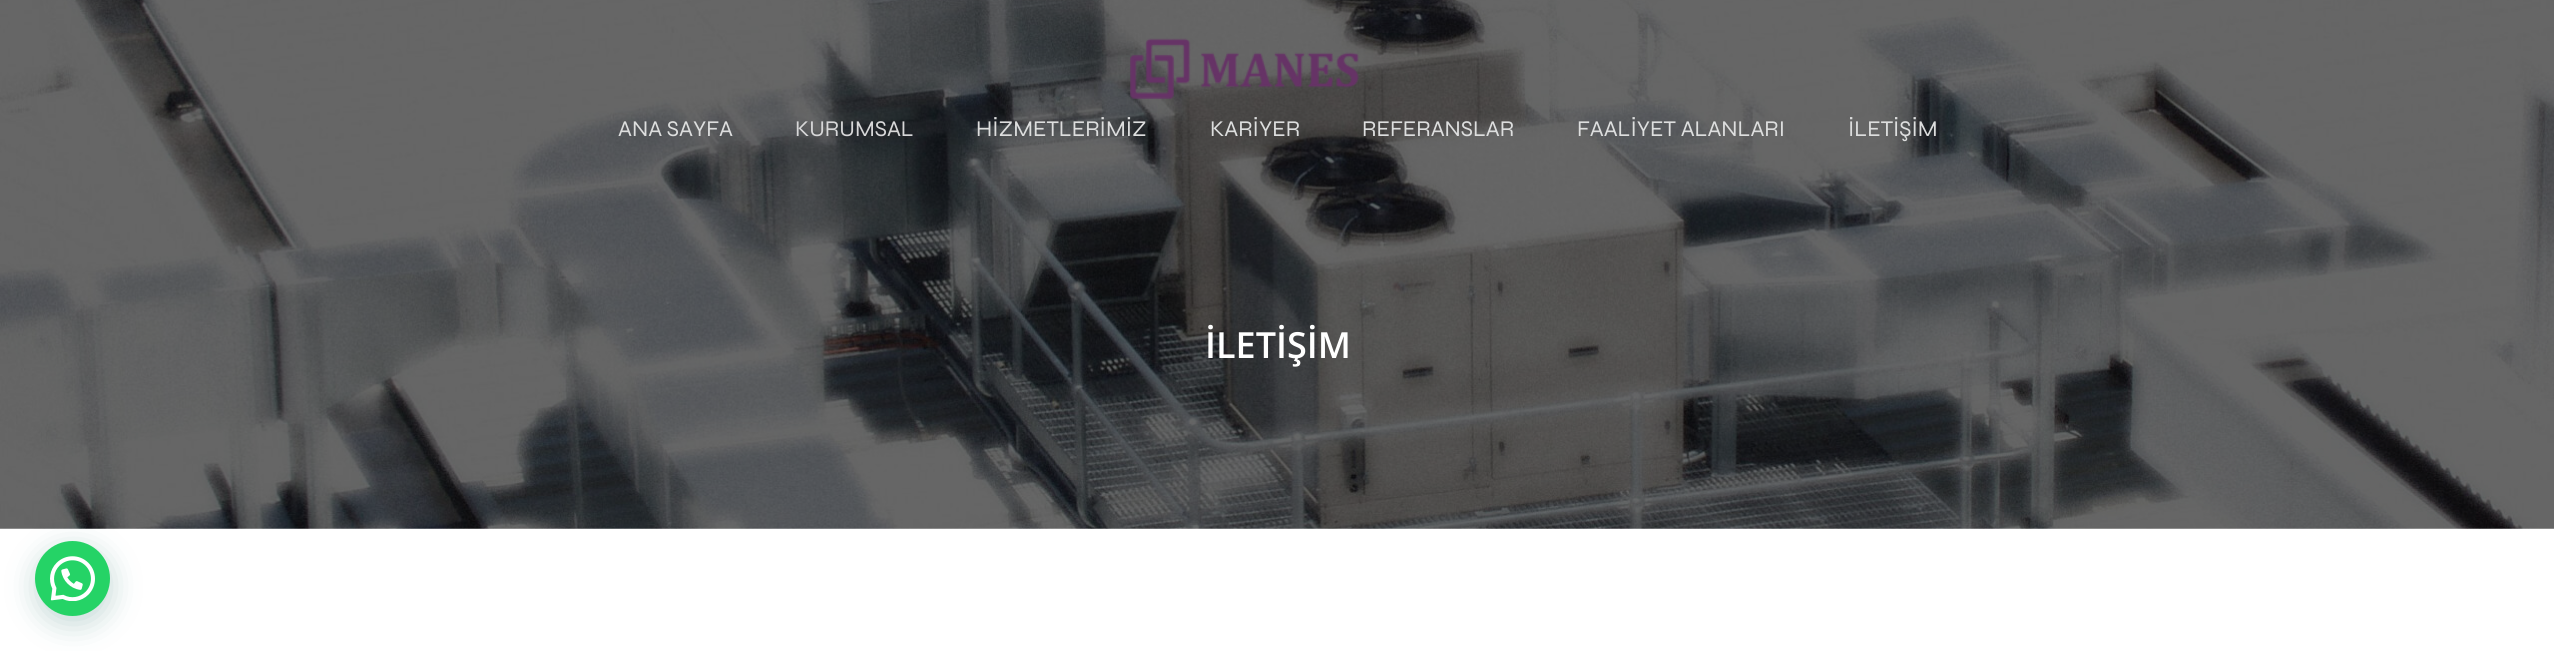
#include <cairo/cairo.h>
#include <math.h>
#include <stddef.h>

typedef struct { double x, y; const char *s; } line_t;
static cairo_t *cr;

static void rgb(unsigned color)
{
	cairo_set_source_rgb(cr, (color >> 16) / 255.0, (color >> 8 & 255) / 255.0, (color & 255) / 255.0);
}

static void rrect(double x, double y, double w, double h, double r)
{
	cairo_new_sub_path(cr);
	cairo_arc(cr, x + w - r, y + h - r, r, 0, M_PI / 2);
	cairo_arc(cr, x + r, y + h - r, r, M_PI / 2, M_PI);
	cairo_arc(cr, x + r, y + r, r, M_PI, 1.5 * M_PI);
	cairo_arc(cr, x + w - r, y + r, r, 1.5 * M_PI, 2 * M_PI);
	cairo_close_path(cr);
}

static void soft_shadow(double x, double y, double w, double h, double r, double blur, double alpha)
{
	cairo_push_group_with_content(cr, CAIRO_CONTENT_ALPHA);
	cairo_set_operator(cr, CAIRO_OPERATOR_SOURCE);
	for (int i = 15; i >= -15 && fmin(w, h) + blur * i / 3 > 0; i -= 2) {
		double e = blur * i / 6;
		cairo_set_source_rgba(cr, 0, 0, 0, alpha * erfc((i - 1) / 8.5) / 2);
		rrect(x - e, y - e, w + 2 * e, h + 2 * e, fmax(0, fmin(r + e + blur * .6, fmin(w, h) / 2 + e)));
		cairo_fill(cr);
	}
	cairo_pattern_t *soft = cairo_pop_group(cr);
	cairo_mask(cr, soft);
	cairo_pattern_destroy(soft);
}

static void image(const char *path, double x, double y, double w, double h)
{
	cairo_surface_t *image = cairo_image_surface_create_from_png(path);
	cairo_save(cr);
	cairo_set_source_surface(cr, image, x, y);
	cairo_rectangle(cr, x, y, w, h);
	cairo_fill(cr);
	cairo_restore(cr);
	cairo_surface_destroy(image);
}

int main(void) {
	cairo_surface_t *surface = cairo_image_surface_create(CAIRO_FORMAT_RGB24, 2554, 651);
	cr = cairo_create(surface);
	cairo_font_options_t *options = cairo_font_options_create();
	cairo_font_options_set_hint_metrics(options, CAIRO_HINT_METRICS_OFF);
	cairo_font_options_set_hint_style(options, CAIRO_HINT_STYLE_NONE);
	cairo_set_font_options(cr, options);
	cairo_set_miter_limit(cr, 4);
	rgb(0xffffff);
	cairo_paint(cr);
	image("img/2.png", 0, 0, 2554, 529);
	image("img/1.png", 1130, 38, 229, 61);
	rgb(0x075e54);
	soft_shadow(36, 549, 75, 75, 37.5, 15, 0.24);
	rgb(0x25d366);
	cairo_arc(cr, 72.5, 578.5, 37.5, 0, 2 * M_PI);
	cairo_fill(cr);
	image("img/3.png", 50, 556, 45, 45);
	cairo_select_font_face(cr, "Syne", CAIRO_FONT_SLANT_NORMAL, CAIRO_FONT_WEIGHT_NORMAL);
	cairo_set_font_size(cr, 22.5);
	rgb(0xdddede);
	cairo_move_to(cr, 618, 136);
	cairo_show_text(cr, "ANA SAYFA");
	rgb(0xd7d7d8);
	cairo_move_to(cr, 795, 136);
	cairo_show_text(cr, "KURUMSAL");
	rgb(0xdddede);
	{
		static const line_t items[] = {
			{976, 136, "HİZMETLERİMİZ"},
			{1210, 136, "KARİYER"},
			{1362, 136, "REFERANSLAR"},
			{1577, 136, "FAALİYET ALANLARI"},
			{1848, 136, "İLETİŞİM"},
		};
		for (size_t i = 0; i < sizeof items / sizeof *items; i++) {
			cairo_move_to(cr, items[i].x, items[i].y);
			cairo_show_text(cr, items[i].s);
		}
	}
	cairo_select_font_face(cr, "Open Sans SemiBold", CAIRO_FONT_SLANT_NORMAL, CAIRO_FONT_WEIGHT_NORMAL);
	cairo_set_font_size(cr, 36);
	rgb(0xffffff);
	cairo_move_to(cr, 1205, 358);
	cairo_show_text(cr, "İLETİŞİM");
	cairo_surface_write_to_png(surface, "page.png");
	cairo_font_options_destroy(options);
	cairo_destroy(cr);
	cairo_surface_destroy(surface);
	return 0;
}
